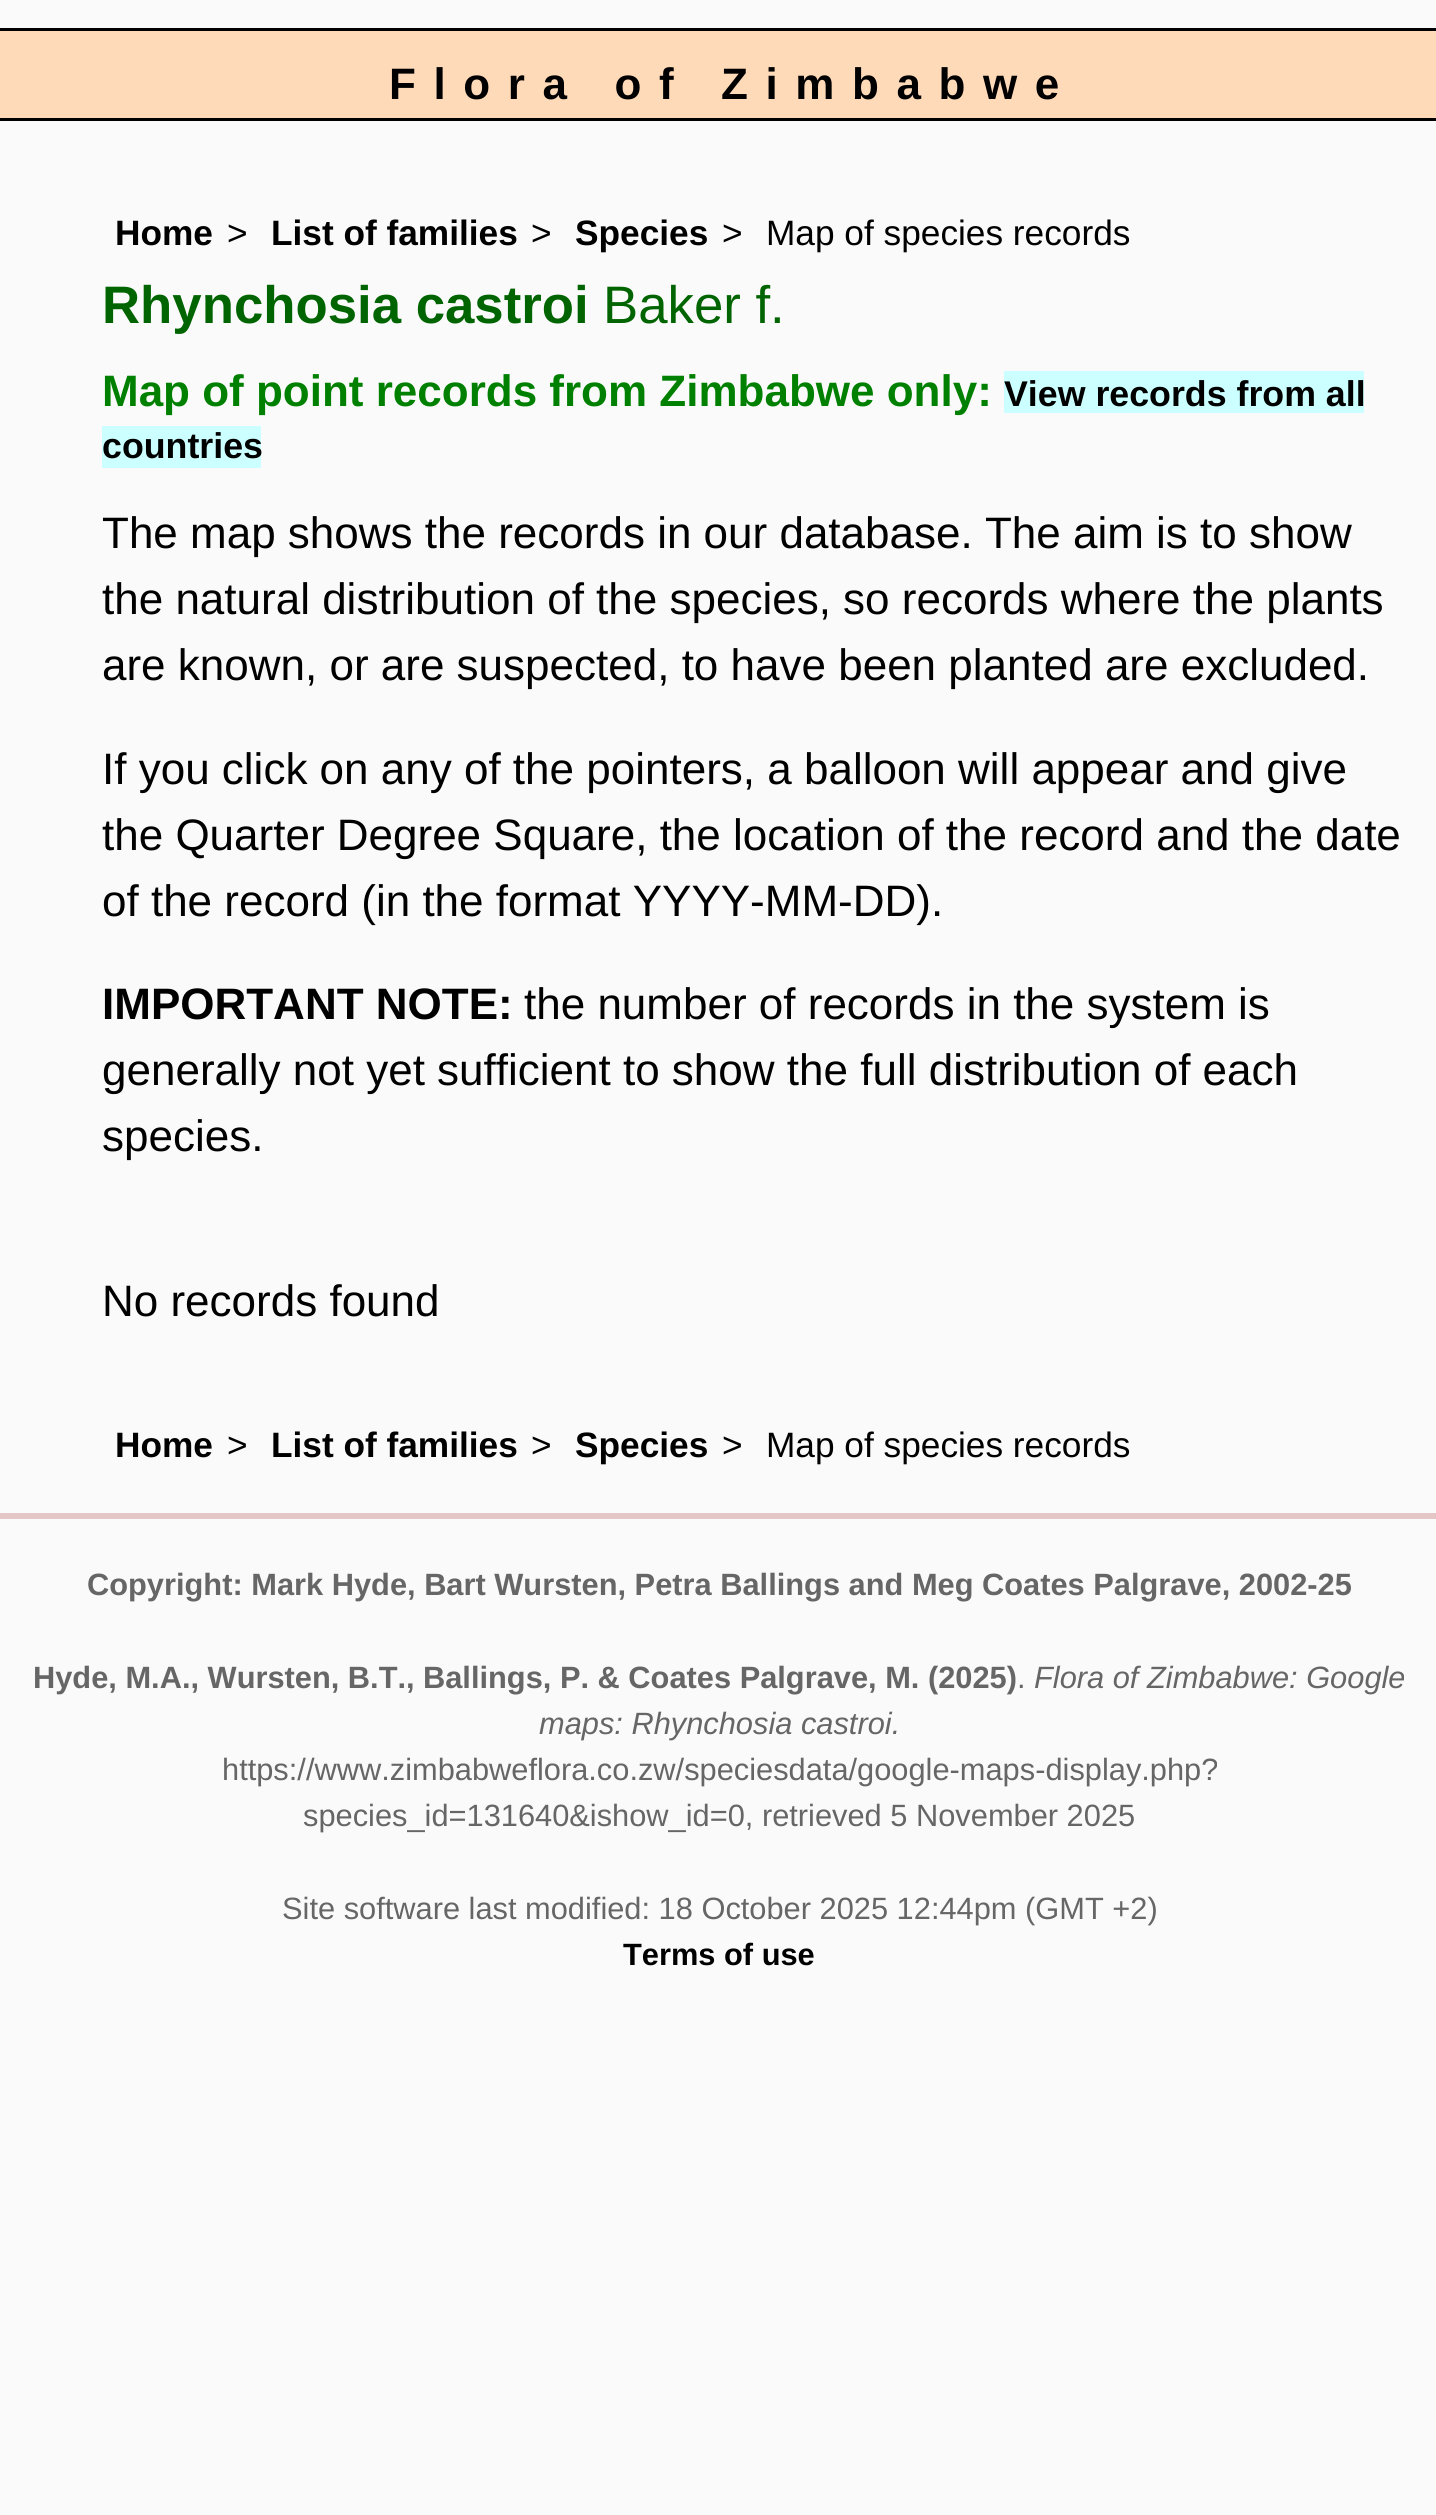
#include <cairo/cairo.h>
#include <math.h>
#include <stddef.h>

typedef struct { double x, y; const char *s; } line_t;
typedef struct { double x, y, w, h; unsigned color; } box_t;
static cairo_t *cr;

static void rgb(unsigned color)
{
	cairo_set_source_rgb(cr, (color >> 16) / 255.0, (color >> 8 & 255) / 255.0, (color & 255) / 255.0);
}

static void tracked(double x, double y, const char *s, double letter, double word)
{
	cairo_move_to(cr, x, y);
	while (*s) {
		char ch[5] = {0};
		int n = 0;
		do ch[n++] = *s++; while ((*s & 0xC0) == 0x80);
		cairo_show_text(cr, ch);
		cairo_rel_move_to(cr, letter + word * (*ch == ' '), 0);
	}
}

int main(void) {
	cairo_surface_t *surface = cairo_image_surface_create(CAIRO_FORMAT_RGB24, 1436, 2515);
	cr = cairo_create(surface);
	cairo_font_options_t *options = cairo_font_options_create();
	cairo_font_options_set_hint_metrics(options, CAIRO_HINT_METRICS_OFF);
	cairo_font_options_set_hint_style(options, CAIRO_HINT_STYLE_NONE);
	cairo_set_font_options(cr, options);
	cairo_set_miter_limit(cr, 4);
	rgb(0xfafafa);
	cairo_paint(cr);
	{
		static const box_t items[] = {
			{0, 31, 1436, 87, 0xffdab9},
			{0, 28, 1436, 3, 0x000000},
			{0, 118, 1436, 3, 0x000000},
			{1004, 371, 360, 42, 0xccffff},
			{102, 426, 159, 42, 0xccffff},
			{0, 1513, 1436, 6, 0xe5c6c6},
		};
		for (size_t i = 0; i < sizeof items / sizeof *items; i++) {
			rgb(items[i].color);
			cairo_rectangle(cr, items[i].x, items[i].y, items[i].w, items[i].h);
			cairo_fill(cr);
		}
	}
	cairo_select_font_face(cr, "Liberation Sans", CAIRO_FONT_SLANT_NORMAL, CAIRO_FONT_WEIGHT_BOLD);
	cairo_set_font_size(cr, 44);
	rgb(0x000000);
	tracked(389, 99, "Flora of Zimbabwe", 17.6, 0);
	cairo_set_font_size(cr, 35.25);
	cairo_move_to(cr, 115, 245);
	cairo_show_text(cr, "Home");
	cairo_select_font_face(cr, "Liberation Sans", CAIRO_FONT_SLANT_NORMAL, CAIRO_FONT_WEIGHT_NORMAL);
	cairo_move_to(cr, 227, 245);
	cairo_show_text(cr, ">");
	cairo_select_font_face(cr, "Liberation Sans", CAIRO_FONT_SLANT_NORMAL, CAIRO_FONT_WEIGHT_BOLD);
	cairo_move_to(cr, 271, 245);
	cairo_show_text(cr, "List of families");
	cairo_select_font_face(cr, "Liberation Sans", CAIRO_FONT_SLANT_NORMAL, CAIRO_FONT_WEIGHT_NORMAL);
	cairo_move_to(cr, 531, 245);
	cairo_show_text(cr, ">");
	cairo_select_font_face(cr, "Liberation Sans", CAIRO_FONT_SLANT_NORMAL, CAIRO_FONT_WEIGHT_BOLD);
	cairo_move_to(cr, 575, 245);
	cairo_show_text(cr, "Species");
	cairo_select_font_face(cr, "Liberation Sans", CAIRO_FONT_SLANT_NORMAL, CAIRO_FONT_WEIGHT_NORMAL);
	cairo_move_to(cr, 722, 245);
	cairo_show_text(cr, ">");
	cairo_move_to(cr, 766, 245);
	cairo_show_text(cr, "Map of species records");
	cairo_select_font_face(cr, "Liberation Sans", CAIRO_FONT_SLANT_NORMAL, CAIRO_FONT_WEIGHT_BOLD);
	cairo_set_font_size(cr, 52.75);
	rgb(0x006400);
	cairo_move_to(cr, 102, 323);
	cairo_show_text(cr, "Rhynchosia castroi");
	cairo_select_font_face(cr, "Liberation Sans", CAIRO_FONT_SLANT_NORMAL, CAIRO_FONT_WEIGHT_NORMAL);
	cairo_move_to(cr, 603, 323);
	cairo_show_text(cr, "Baker f.");
	cairo_select_font_face(cr, "Liberation Sans", CAIRO_FONT_SLANT_NORMAL, CAIRO_FONT_WEIGHT_BOLD);
	cairo_set_font_size(cr, 44);
	rgb(0x008000);
	cairo_move_to(cr, 102, 406);
	cairo_show_text(cr, "Map of point records from Zimbabwe only:");
	cairo_set_font_size(cr, 35.75);
	rgb(0x000000);
	cairo_move_to(cr, 1004, 406);
	cairo_show_text(cr, "View records from all");
	cairo_move_to(cr, 102, 458);
	cairo_show_text(cr, "countries");
	cairo_select_font_face(cr, "Liberation Sans", CAIRO_FONT_SLANT_NORMAL, CAIRO_FONT_WEIGHT_NORMAL);
	cairo_set_font_size(cr, 44);
	{
		static const line_t items[] = {
			{102, 548, "The map shows the records in our database. The aim is to show"},
			{102, 614, "the natural distribution of the species, so records where the plants"},
			{102, 680, "are known, or are suspected, to have been planted are excluded."},
			{102, 784, "If you click on any of the pointers, a balloon will appear and give"},
			{102, 850, "the Quarter Degree Square, the location of the record and the date"},
			{102, 916, "of the record (in the format YYYY-MM-DD)."},
		};
		for (size_t i = 0; i < sizeof items / sizeof *items; i++) {
			cairo_move_to(cr, items[i].x, items[i].y);
			cairo_show_text(cr, items[i].s);
		}
	}
	cairo_select_font_face(cr, "Liberation Sans", CAIRO_FONT_SLANT_NORMAL, CAIRO_FONT_WEIGHT_BOLD);
	cairo_move_to(cr, 102, 1019);
	cairo_show_text(cr, "IMPORTANT NOTE:");
	cairo_select_font_face(cr, "Liberation Sans", CAIRO_FONT_SLANT_NORMAL, CAIRO_FONT_WEIGHT_NORMAL);
	{
		static const line_t items[] = {
			{524, 1019, "the number of records in the system is"},
			{102, 1085, "generally not yet sufficient to show the full distribution of each"},
			{102, 1151, "species."},
			{102, 1316, "No records found"},
		};
		for (size_t i = 0; i < sizeof items / sizeof *items; i++) {
			cairo_move_to(cr, items[i].x, items[i].y);
			cairo_show_text(cr, items[i].s);
		}
	}
	cairo_select_font_face(cr, "Liberation Sans", CAIRO_FONT_SLANT_NORMAL, CAIRO_FONT_WEIGHT_BOLD);
	cairo_set_font_size(cr, 35.25);
	cairo_move_to(cr, 115, 1457);
	cairo_show_text(cr, "Home");
	cairo_select_font_face(cr, "Liberation Sans", CAIRO_FONT_SLANT_NORMAL, CAIRO_FONT_WEIGHT_NORMAL);
	cairo_move_to(cr, 227, 1457);
	cairo_show_text(cr, ">");
	cairo_select_font_face(cr, "Liberation Sans", CAIRO_FONT_SLANT_NORMAL, CAIRO_FONT_WEIGHT_BOLD);
	cairo_move_to(cr, 271, 1457);
	cairo_show_text(cr, "List of families");
	cairo_select_font_face(cr, "Liberation Sans", CAIRO_FONT_SLANT_NORMAL, CAIRO_FONT_WEIGHT_NORMAL);
	cairo_move_to(cr, 531, 1457);
	cairo_show_text(cr, ">");
	cairo_select_font_face(cr, "Liberation Sans", CAIRO_FONT_SLANT_NORMAL, CAIRO_FONT_WEIGHT_BOLD);
	cairo_move_to(cr, 575, 1457);
	cairo_show_text(cr, "Species");
	cairo_select_font_face(cr, "Liberation Sans", CAIRO_FONT_SLANT_NORMAL, CAIRO_FONT_WEIGHT_NORMAL);
	cairo_move_to(cr, 722, 1457);
	cairo_show_text(cr, ">");
	cairo_move_to(cr, 766, 1457);
	cairo_show_text(cr, "Map of species records");
	cairo_select_font_face(cr, "Liberation Sans", CAIRO_FONT_SLANT_NORMAL, CAIRO_FONT_WEIGHT_BOLD);
	cairo_set_font_size(cr, 30.8);
	rgb(0x666666);
	{
		static const line_t items[] = {
			{87, 1595, "Copyright: Mark Hyde, Bart Wursten, Petra Ballings and Meg Coates Palgrave, 2002-25"},
			{33, 1688, "Hyde, M.A., Wursten, B.T.,"},
			{423, 1688, "Ballings, P. & Coates Palgrave, M. (2025)"},
		};
		for (size_t i = 0; i < sizeof items / sizeof *items; i++) {
			cairo_move_to(cr, items[i].x, items[i].y);
			cairo_show_text(cr, items[i].s);
		}
	}
	cairo_select_font_face(cr, "Liberation Sans", CAIRO_FONT_SLANT_NORMAL, CAIRO_FONT_WEIGHT_NORMAL);
	cairo_move_to(cr, 1017, 1688);
	cairo_show_text(cr, ".");
	cairo_select_font_face(cr, "Liberation Sans", CAIRO_FONT_SLANT_ITALIC, CAIRO_FONT_WEIGHT_NORMAL);
	cairo_move_to(cr, 1034, 1688);
	cairo_show_text(cr, "Flora of Zimbabwe: Google");
	cairo_move_to(cr, 539, 1734);
	cairo_show_text(cr, "maps: Rhynchosia castroi.");
	cairo_select_font_face(cr, "Liberation Sans", CAIRO_FONT_SLANT_NORMAL, CAIRO_FONT_WEIGHT_NORMAL);
	{
		static const line_t items[] = {
			{222, 1780, "https://www.zimbabweflora.co.zw/speciesdata/google-maps-display.php?"},
			{303, 1826, "species_id=131640&ishow_id=0, retrieved 5 November 2025"},
			{282, 1919, "Site software last modified: 18 October 2025 12:44pm (GMT +2)"},
		};
		for (size_t i = 0; i < sizeof items / sizeof *items; i++) {
			cairo_move_to(cr, items[i].x, items[i].y);
			cairo_show_text(cr, items[i].s);
		}
	}
	cairo_select_font_face(cr, "Liberation Sans", CAIRO_FONT_SLANT_NORMAL, CAIRO_FONT_WEIGHT_BOLD);
	rgb(0x000000);
	cairo_move_to(cr, 623, 1965);
	cairo_show_text(cr, "Terms of use");
	cairo_surface_write_to_png(surface, "page.png");
	cairo_font_options_destroy(options);
	cairo_destroy(cr);
	cairo_surface_destroy(surface);
	return 0;
}
